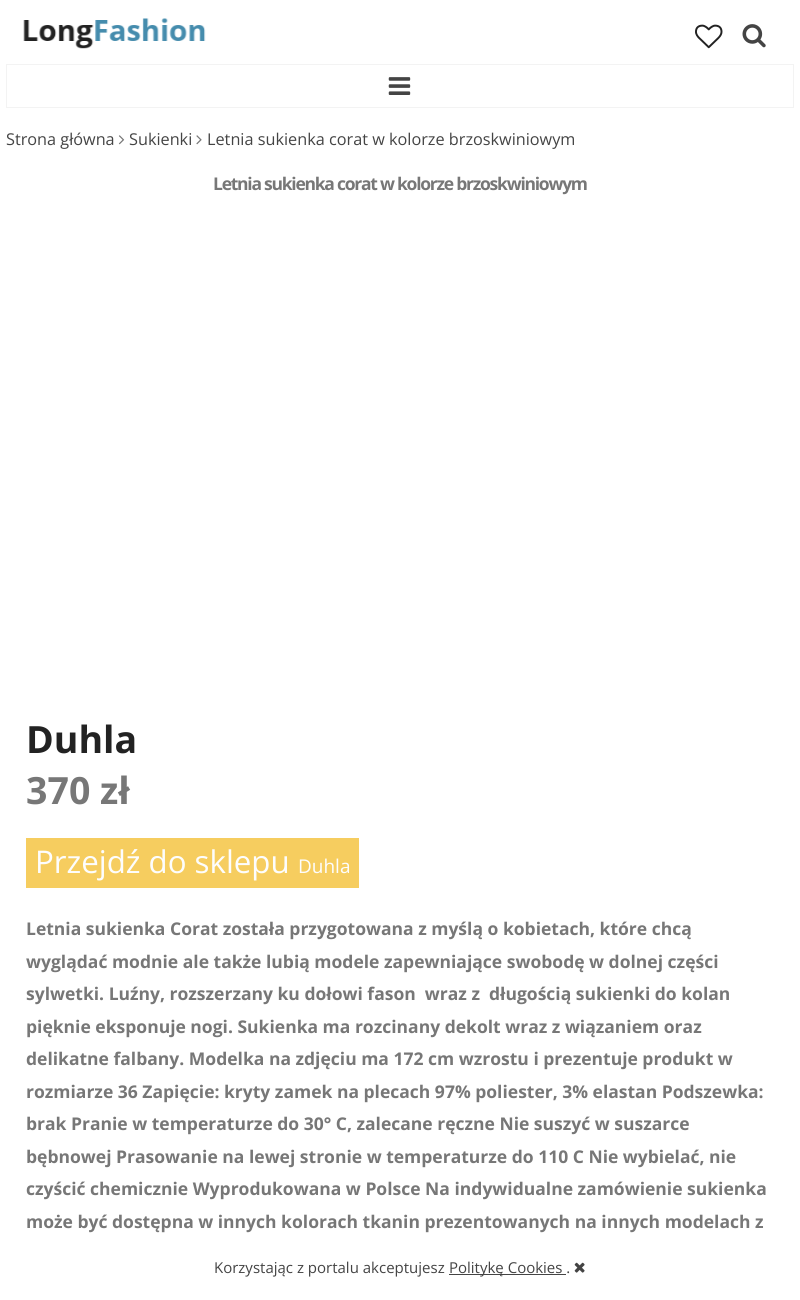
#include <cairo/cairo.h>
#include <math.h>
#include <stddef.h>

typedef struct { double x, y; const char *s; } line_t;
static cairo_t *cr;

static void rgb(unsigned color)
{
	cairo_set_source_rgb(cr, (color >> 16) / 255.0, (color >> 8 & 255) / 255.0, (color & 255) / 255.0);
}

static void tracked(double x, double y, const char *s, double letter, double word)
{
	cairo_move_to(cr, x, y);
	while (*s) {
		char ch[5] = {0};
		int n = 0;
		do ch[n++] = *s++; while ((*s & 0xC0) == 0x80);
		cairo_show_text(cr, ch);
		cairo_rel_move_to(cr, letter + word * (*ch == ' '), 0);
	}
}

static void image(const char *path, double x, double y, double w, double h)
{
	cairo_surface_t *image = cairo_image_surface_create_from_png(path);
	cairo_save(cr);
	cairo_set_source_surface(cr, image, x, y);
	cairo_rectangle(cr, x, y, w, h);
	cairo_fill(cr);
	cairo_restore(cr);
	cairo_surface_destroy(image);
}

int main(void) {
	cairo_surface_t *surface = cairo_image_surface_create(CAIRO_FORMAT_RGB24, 800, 1300);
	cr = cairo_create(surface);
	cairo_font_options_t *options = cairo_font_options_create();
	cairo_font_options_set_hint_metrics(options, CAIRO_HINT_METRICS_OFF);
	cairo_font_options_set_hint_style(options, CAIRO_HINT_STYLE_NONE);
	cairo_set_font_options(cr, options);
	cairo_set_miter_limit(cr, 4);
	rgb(0xffffff);
	cairo_paint(cr);
	image("img/1.png", 23, 18, 183, 31);
	image("img/2.png", 695, 24, 28, 25);
	image("img/3.png", 742, 24, 24, 24);
	cairo_rectangle(cr, 6.5, 64.5, 787, 43);
	rgb(0xf3f3f3);
	cairo_set_line_width(cr, 1);
	cairo_stroke(cr);
	image("img/4.png", 388, 77, 23, 18);
	image("img/5.png", 118, 135, 7, 10);
	image("img/6.png", 196, 135, 6, 10);
	rgb(0xf6cd5f);
	cairo_rectangle(cr, 26, 838, 333, 50);
	cairo_fill(cr);
	rgb(0x444444);
	cairo_rectangle(cr, 449, 1274, 117, 1);
	cairo_fill(cr);
	image("img/7.png", 574, 1262, 11, 11);
	cairo_select_font_face(cr, "Open Sans", CAIRO_FONT_SLANT_NORMAL, CAIRO_FONT_WEIGHT_NORMAL);
	cairo_set_font_size(cr, 16.25);
	{
		static const line_t items[] = {
			{6, 145, "Strona główna"},
			{129, 145, "Sukienki"},
			{207, 145, "Letnia sukienka corat w kolorze brzoskwiniowym"},
		};
		for (size_t i = 0; i < sizeof items / sizeof *items; i++) {
			cairo_move_to(cr, items[i].x, items[i].y);
			cairo_show_text(cr, items[i].s);
		}
	}
	cairo_select_font_face(cr, "Open Sans", CAIRO_FONT_SLANT_NORMAL, CAIRO_FONT_WEIGHT_BOLD);
	cairo_set_font_size(cr, 17.5);
	rgb(0x777777);
	tracked(213, 190, "Letnia sukienka corat w kolorze brzoskwiniowym", -1.25, 0);
	cairo_set_font_size(cr, 37.5);
	rgb(0x222222);
	cairo_move_to(cr, 26, 753);
	cairo_show_text(cr, "Duhla");
	rgb(0x777777);
	cairo_move_to(cr, 26, 804);
	cairo_show_text(cr, "370 zł");
	cairo_select_font_face(cr, "Open Sans", CAIRO_FONT_SLANT_NORMAL, CAIRO_FONT_WEIGHT_NORMAL);
	cairo_set_font_size(cr, 31.25);
	rgb(0xfdfdfd);
	cairo_move_to(cr, 35, 873);
	cairo_show_text(cr, "Przejdź do sklepu");
	cairo_set_font_size(cr, 19);
	cairo_move_to(cr, 298, 873);
	cairo_show_text(cr, "Duhla");
	cairo_select_font_face(cr, "Open Sans", CAIRO_FONT_SLANT_NORMAL, CAIRO_FONT_WEIGHT_BOLD);
	cairo_set_font_size(cr, 17.5);
	rgb(0x777777);
	{
		static const line_t items[] = {
			{26, 935, "Letnia sukienka Corat została przygotowana z myślą o kobietach, które chcą"},
			{26, 968, "wyglądać modnie ale także lubią modele zapewniające swobodę w dolnej części"},
			{26, 1000, "sylwetki. Luźny, rozszerzany ku dołowi fason  wraz z  długością sukienki do kolan"},
			{26, 1033, "pięknie eksponuje nogi. Sukienka ma rozcinany dekolt wraz z wiązaniem oraz"},
			{26, 1065, "delikatne falbany. Modelka na zdjęciu ma 172 cm wzrostu i prezentuje produkt w"},
			{26, 1098, "rozmiarze 36 Zapięcie: kryty zamek na plecach 97% poliester, 3% elastan Podszewka:"},
			{26, 1130, "brak Pranie w temperaturze do 30° C, zalecane ręczne Nie suszyć w suszarce"},
			{26, 1163, "bębnowej Prasowanie na lewej stronie w temperaturze do 110 C Nie wybielać, nie"},
			{26, 1195, "czyścić chemicznie Wyprodukowana w Polsce Na indywidualne zamówienie sukienka"},
			{26, 1228, "może być dostępna w innych kolorach tkanin prezentowanych na innych modelach z"},
		};
		for (size_t i = 0; i < sizeof items / sizeof *items; i++) {
			cairo_move_to(cr, items[i].x, items[i].y);
			cairo_show_text(cr, items[i].s);
		}
	}
	cairo_select_font_face(cr, "Open Sans", CAIRO_FONT_SLANT_NORMAL, CAIRO_FONT_WEIGHT_NORMAL);
	cairo_set_font_size(cr, 15);
	rgb(0x444444);
	cairo_move_to(cr, 214, 1273);
	cairo_show_text(cr, "Korzystając z portalu akceptujesz");
	cairo_move_to(cr, 449, 1273);
	cairo_show_text(cr, "Politykę Cookies .");
	cairo_surface_write_to_png(surface, "page.png");
	cairo_font_options_destroy(options);
	cairo_destroy(cr);
	cairo_surface_destroy(surface);
	return 0;
}
